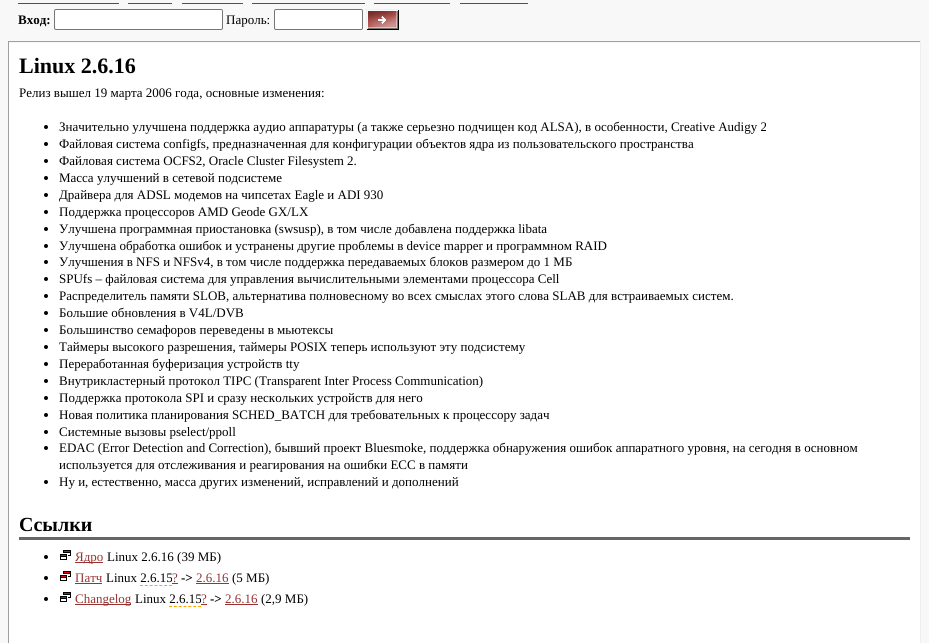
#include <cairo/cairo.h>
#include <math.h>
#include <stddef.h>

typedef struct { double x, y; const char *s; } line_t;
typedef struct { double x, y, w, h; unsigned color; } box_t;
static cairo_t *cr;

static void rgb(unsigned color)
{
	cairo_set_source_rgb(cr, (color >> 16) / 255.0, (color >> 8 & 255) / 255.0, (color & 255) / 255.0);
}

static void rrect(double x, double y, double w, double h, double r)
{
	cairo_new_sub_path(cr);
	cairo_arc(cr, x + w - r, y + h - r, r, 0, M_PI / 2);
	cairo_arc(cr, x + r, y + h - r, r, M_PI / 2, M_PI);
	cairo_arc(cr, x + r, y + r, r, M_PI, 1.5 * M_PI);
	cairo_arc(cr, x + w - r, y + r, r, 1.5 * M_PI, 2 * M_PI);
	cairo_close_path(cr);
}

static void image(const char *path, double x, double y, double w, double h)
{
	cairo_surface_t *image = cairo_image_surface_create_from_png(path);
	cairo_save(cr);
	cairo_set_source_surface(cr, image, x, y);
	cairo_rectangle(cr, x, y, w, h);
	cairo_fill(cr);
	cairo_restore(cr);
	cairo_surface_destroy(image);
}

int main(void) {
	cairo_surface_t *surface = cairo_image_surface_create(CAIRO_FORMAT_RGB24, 929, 643);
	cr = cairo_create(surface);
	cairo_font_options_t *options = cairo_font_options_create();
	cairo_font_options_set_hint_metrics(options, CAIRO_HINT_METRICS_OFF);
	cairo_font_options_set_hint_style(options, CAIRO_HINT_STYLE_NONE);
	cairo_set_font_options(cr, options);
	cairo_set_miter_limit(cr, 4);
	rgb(0xf8f8f8);
	cairo_paint(cr);
	{
		static const box_t items[] = {
			{18, 3, 101, 1, 0x993333},
			{128, 3, 44, 1, 0x993333},
			{182, 3, 61, 1, 0x993333},
			{252, 3, 113, 1, 0x993333},
			{374, 3, 76, 1, 0x993333},
			{460, 3, 68, 1, 0x993333},
		};
		for (size_t i = 0; i < sizeof items / sizeof *items; i++) {
			rgb(items[i].color);
			cairo_rectangle(cr, items[i].x, items[i].y, items[i].w, items[i].h);
			cairo_fill(cr);
		}
	}
	rgb(0xffffff);
	rrect(54.5, 9.5, 168, 20, 1.5);
	cairo_fill_preserve(cr);
	rgb(0x767676);
	cairo_set_line_width(cr, 1);
	cairo_stroke(cr);
	rgb(0xffffff);
	rrect(274.5, 9.5, 88, 20, 1.5);
	cairo_fill_preserve(cr);
	rgb(0x767676);
	cairo_stroke(cr);
	image("img/1.png", 366, 9, 33, 21);
	{
		static const box_t items[] = {
			{8, 41, 913, 1, 0x9f9f9f},
			{920, 41, 1, 602, 0xeeeeee},
			{8, 41, 1, 602, 0x9f9f9f},
			{9, 43, 911, 600, 0xffffff},
		};
		for (size_t i = 0; i < sizeof items / sizeof *items; i++) {
			rgb(items[i].color);
			cairo_rectangle(cr, items[i].x, items[i].y, items[i].w, items[i].h);
			cairo_fill(cr);
		}
	}
	rgb(0x000000);
	cairo_arc(cr, 46, 127, 2, 0, 2 * M_PI);
	cairo_fill(cr);
	cairo_arc(cr, 46, 144, 2, 0, 2 * M_PI);
	cairo_fill(cr);
	cairo_arc(cr, 46, 161, 2, 0, 2 * M_PI);
	cairo_fill(cr);
	cairo_arc(cr, 46, 178, 2, 0, 2 * M_PI);
	cairo_fill(cr);
	cairo_arc(cr, 46, 195, 2, 0, 2 * M_PI);
	cairo_fill(cr);
	cairo_arc(cr, 46, 212, 2, 0, 2 * M_PI);
	cairo_fill(cr);
	cairo_arc(cr, 46, 229, 2, 0, 2 * M_PI);
	cairo_fill(cr);
	cairo_arc(cr, 46, 246, 2, 0, 2 * M_PI);
	cairo_fill(cr);
	cairo_arc(cr, 46, 262, 2, 0, 2 * M_PI);
	cairo_fill(cr);
	cairo_arc(cr, 46, 279, 2, 0, 2 * M_PI);
	cairo_fill(cr);
	cairo_arc(cr, 46, 296, 2, 0, 2 * M_PI);
	cairo_fill(cr);
	cairo_arc(cr, 46, 313, 2, 0, 2 * M_PI);
	cairo_fill(cr);
	cairo_arc(cr, 46, 330, 2, 0, 2 * M_PI);
	cairo_fill(cr);
	cairo_arc(cr, 46, 347, 2, 0, 2 * M_PI);
	cairo_fill(cr);
	cairo_arc(cr, 46, 364, 2, 0, 2 * M_PI);
	cairo_fill(cr);
	cairo_arc(cr, 46, 381, 2, 0, 2 * M_PI);
	cairo_fill(cr);
	cairo_arc(cr, 46, 398, 2, 0, 2 * M_PI);
	cairo_fill(cr);
	cairo_arc(cr, 46, 415, 2, 0, 2 * M_PI);
	cairo_fill(cr);
	cairo_arc(cr, 46, 432, 2, 0, 2 * M_PI);
	cairo_fill(cr);
	cairo_arc(cr, 46, 448, 2, 0, 2 * M_PI);
	cairo_fill(cr);
	cairo_arc(cr, 46, 482, 2, 0, 2 * M_PI);
	cairo_fill(cr);
	rgb(0x666666);
	cairo_rectangle(cr, 19, 537, 891, 3);
	cairo_fill(cr);
	rgb(0x000000);
	cairo_arc(cr, 46, 557, 2, 0, 2 * M_PI);
	cairo_fill(cr);
	image("img/2.png", 60, 550, 11, 10);
	rgb(0x993333);
	cairo_rectangle(cr, 75, 562, 28, 1);
	cairo_fill(cr);
	rgb(0x000000);
	cairo_arc(cr, 46, 578, 2, 0, 2 * M_PI);
	cairo_fill(cr);
	image("img/2.png", 60, 571, 11, 10);
	{
		static const box_t items[] = {
			{75, 583, 27, 1, 0x993333},
			{172, 583, 6, 1, 0x993333},
			{196, 583, 33, 1, 0x993333},
		};
		for (size_t i = 0; i < sizeof items / sizeof *items; i++) {
			rgb(items[i].color);
			cairo_rectangle(cr, items[i].x, items[i].y, items[i].w, items[i].h);
			cairo_fill(cr);
		}
	}
	cairo_new_path(cr);
	cairo_move_to(cr, 140, 585.5);
	cairo_line_to(cr, 172, 585.5);
	rgb(0xffa500);
	cairo_set_dash(cr, (double[]){3, 1.83}, 2, 0);
	cairo_stroke(cr);
	rgb(0x000000);
	cairo_arc(cr, 46, 599, 2, 0, 2 * M_PI);
	cairo_fill(cr);
	image("img/2.png", 60, 592, 11, 10);
	{
		static const box_t items[] = {
			{75, 604, 56, 1, 0x993333},
			{201, 604, 6, 1, 0x993333},
			{225, 604, 33, 1, 0x993333},
		};
		for (size_t i = 0; i < sizeof items / sizeof *items; i++) {
			rgb(items[i].color);
			cairo_rectangle(cr, items[i].x, items[i].y, items[i].w, items[i].h);
			cairo_fill(cr);
		}
	}
	cairo_new_path(cr);
	cairo_move_to(cr, 169, 606.5);
	cairo_line_to(cr, 201, 606.5);
	rgb(0xffa500);
	cairo_stroke(cr);
	cairo_select_font_face(cr, "Liberation Serif", CAIRO_FONT_SLANT_NORMAL, CAIRO_FONT_WEIGHT_BOLD);
	cairo_set_font_size(cr, 13);
	rgb(0x000000);
	cairo_move_to(cr, 18, 24);
	cairo_show_text(cr, "Вход:");
	cairo_select_font_face(cr, "Liberation Serif", CAIRO_FONT_SLANT_NORMAL, CAIRO_FONT_WEIGHT_NORMAL);
	cairo_move_to(cr, 226, 24);
	cairo_show_text(cr, "Пароль:");
	cairo_select_font_face(cr, "Liberation Serif", CAIRO_FONT_SLANT_NORMAL, CAIRO_FONT_WEIGHT_BOLD);
	cairo_set_font_size(cr, 22);
	cairo_move_to(cr, 19, 73);
	cairo_show_text(cr, "Linux 2.6.16");
	cairo_select_font_face(cr, "Liberation Serif", CAIRO_FONT_SLANT_NORMAL, CAIRO_FONT_WEIGHT_NORMAL);
	cairo_set_font_size(cr, 13);
	{
		static const line_t items[] = {
			{19, 97, "Релиз вышел 19 марта 2006 года, основные изменения:"},
			{59, 131, "Значительно улучшена поддержка аудио аппаратуры (а также серьезно подчищен код ALSA), в особенности, Creative Audigy 2"},
			{59, 148, "Файловая система configfs, предназначенная для конфигурации объектов ядра из пользовательского пространства"},
			{59, 165, "Файловая система OCFS2, Oracle Cluster Filesystem 2."},
			{59, 182, "Масса улучшений в сетевой подсистеме"},
			{59, 199, "Драйвера для ADSL модемов на чипсетах Eagle и ADI 930"},
			{59, 216, "Поддержка процессоров AMD Geode GX/LX"},
			{59, 233, "Улучшена программная приостановка (swsusp), в том числе добавлена поддержка libata"},
			{59, 250, "Улучшена обработка ошибок и устранены другие проблемы в device mapper и программном RAID"},
			{59, 266, "Улучшения в NFS и NFSv4, в том числе поддержка передаваемых блоков размером до 1 МБ"},
			{59, 283, "SPUfs – файловая система для управления вычислительными элементами процессора Cell"},
			{59, 300, "Распределитель памяти SLOB, альтернатива полновесному во всех смыслах этого слова SLAB для встраиваемых систем."},
			{59, 317, "Большие обновления в V4L/DVB"},
			{59, 334, "Большинство семафоров переведены в мьютексы"},
			{59, 351, "Таймеры высокого разрешения, таймеры POSIX теперь используют эту подсистему"},
			{59, 368, "Переработанная буферизация устройств tty"},
			{59, 385, "Внутрикластерный протокол TIPC (Transparent Inter Process Communication)"},
			{59, 402, "Поддержка протокола SPI и сразу нескольких устройств для него"},
			{59, 419, "Новая политика планирования SCHED_BATCH для требовательных к процессору задач"},
			{59, 436, "Системные вызовы pselect/ppoll"},
			{59, 452, "EDAC (Error Detection and Correction), бывший проект Bluesmoke, поддержка обнаружения ошибок аппаратного уровня, на сегодня в основном"},
			{59, 469, "используется для отслеживания и реагирования на ошибки ECC в памяти"},
			{59, 486, "Ну и, естественно, масса других изменений, исправлений и дополнений"},
		};
		for (size_t i = 0; i < sizeof items / sizeof *items; i++) {
			cairo_move_to(cr, items[i].x, items[i].y);
			cairo_show_text(cr, items[i].s);
		}
	}
	cairo_select_font_face(cr, "Liberation Serif", CAIRO_FONT_SLANT_NORMAL, CAIRO_FONT_WEIGHT_BOLD);
	cairo_set_font_size(cr, 20);
	cairo_move_to(cr, 19, 531);
	cairo_show_text(cr, "Ссылки");
	cairo_select_font_face(cr, "Liberation Serif", CAIRO_FONT_SLANT_NORMAL, CAIRO_FONT_WEIGHT_NORMAL);
	cairo_set_font_size(cr, 13);
	rgb(0x993333);
	cairo_move_to(cr, 75, 561);
	cairo_show_text(cr, "Ядро");
	rgb(0x000000);
	cairo_move_to(cr, 107, 561);
	cairo_show_text(cr, "Linux 2.6.16 (39 МБ)");
	rgb(0x993333);
	cairo_move_to(cr, 75, 582);
	cairo_show_text(cr, "Патч");
	rgb(0x000000);
	cairo_move_to(cr, 106, 582);
	cairo_show_text(cr, "Linux 2.6.15");
	rgb(0x993333);
	cairo_move_to(cr, 172, 582);
	cairo_show_text(cr, "?");
	cairo_select_font_face(cr, "Liberation Serif", CAIRO_FONT_SLANT_NORMAL, CAIRO_FONT_WEIGHT_BOLD);
	rgb(0x000000);
	cairo_move_to(cr, 181, 582);
	cairo_show_text(cr, "->");
	cairo_select_font_face(cr, "Liberation Serif", CAIRO_FONT_SLANT_NORMAL, CAIRO_FONT_WEIGHT_NORMAL);
	rgb(0x993333);
	cairo_move_to(cr, 196, 582);
	cairo_show_text(cr, "2.6.16");
	rgb(0x000000);
	cairo_move_to(cr, 232, 582);
	cairo_show_text(cr, "(5 МБ)");
	rgb(0x993333);
	cairo_move_to(cr, 75, 603);
	cairo_show_text(cr, "Changelog");
	rgb(0x000000);
	cairo_move_to(cr, 135, 603);
	cairo_show_text(cr, "Linux 2.6.15");
	rgb(0x993333);
	cairo_move_to(cr, 201, 603);
	cairo_show_text(cr, "?");
	cairo_select_font_face(cr, "Liberation Serif", CAIRO_FONT_SLANT_NORMAL, CAIRO_FONT_WEIGHT_BOLD);
	rgb(0x000000);
	cairo_move_to(cr, 210, 603);
	cairo_show_text(cr, "->");
	cairo_select_font_face(cr, "Liberation Serif", CAIRO_FONT_SLANT_NORMAL, CAIRO_FONT_WEIGHT_NORMAL);
	rgb(0x993333);
	cairo_move_to(cr, 225, 603);
	cairo_show_text(cr, "2.6.16");
	rgb(0x000000);
	cairo_move_to(cr, 261, 603);
	cairo_show_text(cr, "(2,9 МБ)");
	cairo_surface_write_to_png(surface, "page.png");
	cairo_font_options_destroy(options);
	cairo_destroy(cr);
	cairo_surface_destroy(surface);
	return 0;
}
